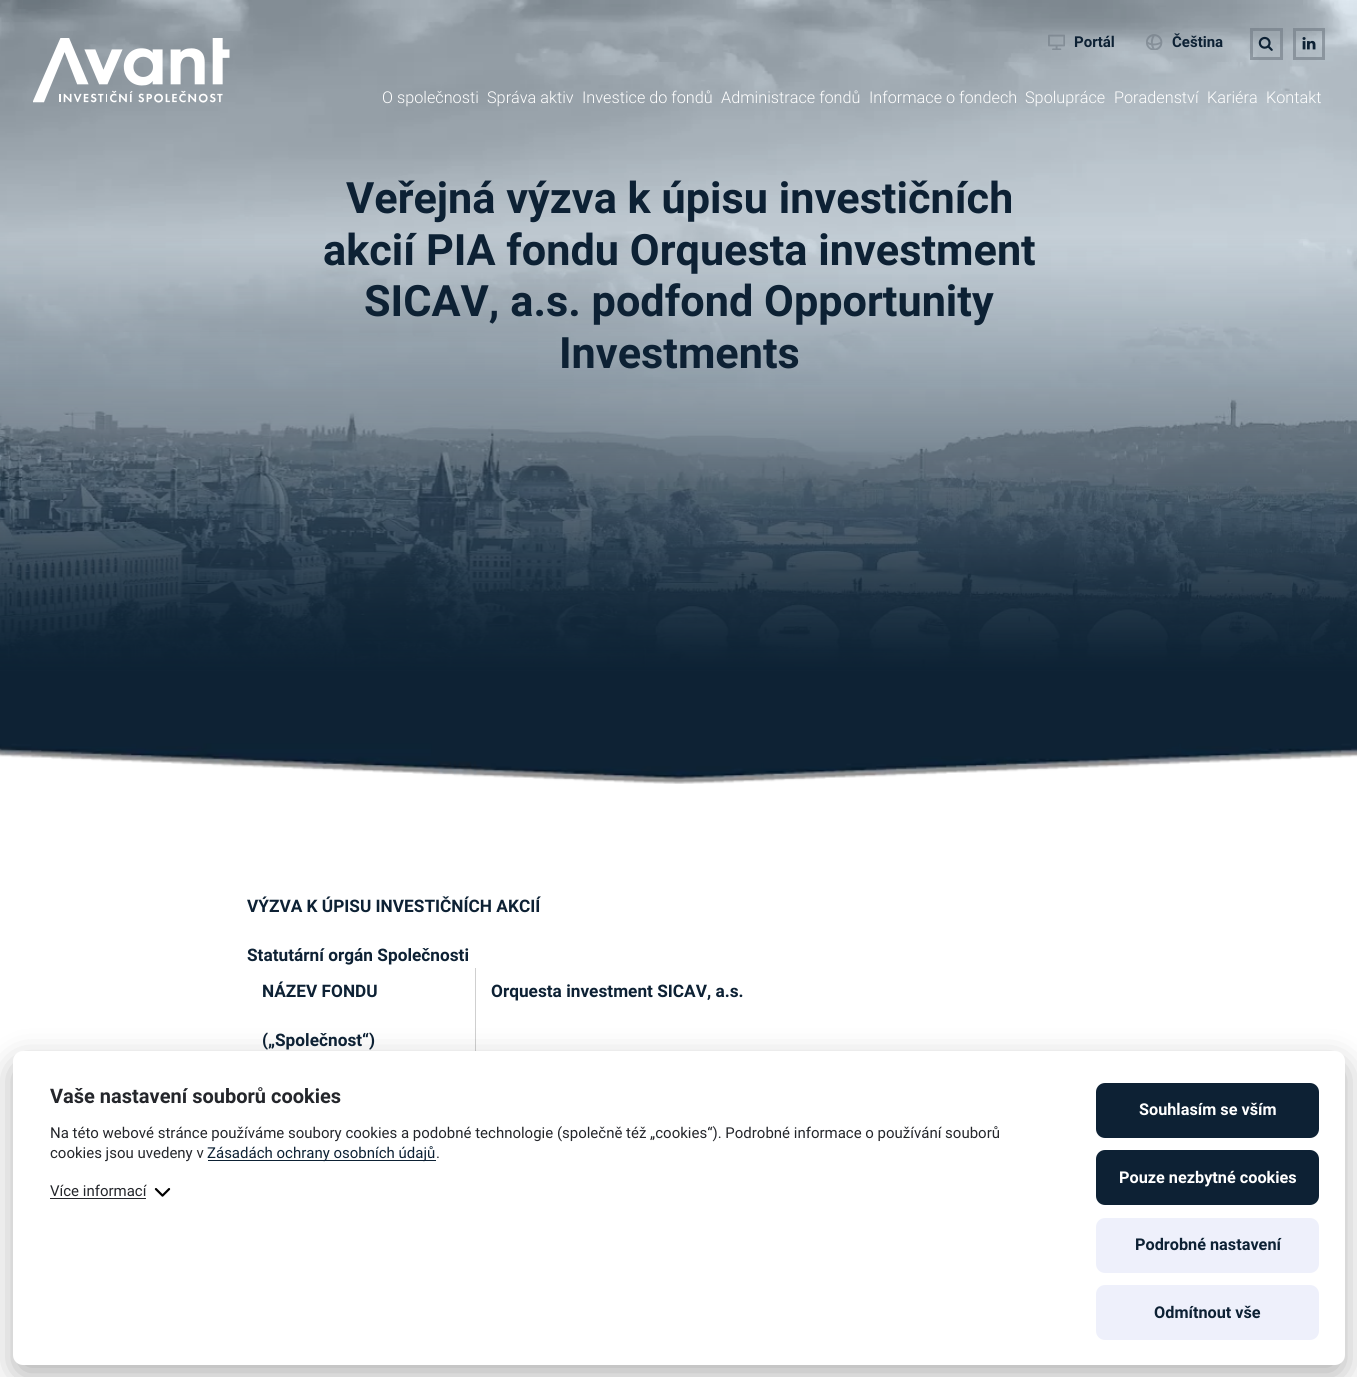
#include <cairo/cairo.h>
#include <math.h>
#include <stddef.h>

typedef struct { double x, y; const char *s; } line_t;
static cairo_t *cr;

static void rgb(unsigned color)
{
	cairo_set_source_rgb(cr, (color >> 16) / 255.0, (color >> 8 & 255) / 255.0, (color & 255) / 255.0);
}

static void rrect(double x, double y, double w, double h, double r)
{
	cairo_new_sub_path(cr);
	cairo_arc(cr, x + w - r, y + h - r, r, 0, M_PI / 2);
	cairo_arc(cr, x + r, y + h - r, r, M_PI / 2, M_PI);
	cairo_arc(cr, x + r, y + r, r, M_PI, 1.5 * M_PI);
	cairo_arc(cr, x + w - r, y + r, r, 1.5 * M_PI, 2 * M_PI);
	cairo_close_path(cr);
}

static void soft_shadow(double x, double y, double w, double h, double r, double blur, double alpha)
{
	cairo_push_group_with_content(cr, CAIRO_CONTENT_ALPHA);
	cairo_set_operator(cr, CAIRO_OPERATOR_SOURCE);
	for (int i = 15; i >= -15 && fmin(w, h) + blur * i / 3 > 0; i -= 2) {
		double e = blur * i / 6;
		cairo_set_source_rgba(cr, 0, 0, 0, alpha * erfc((i - 1) / 8.5) / 2);
		rrect(x - e, y - e, w + 2 * e, h + 2 * e, fmax(0, fmin(r + e + blur * .6, fmin(w, h) / 2 + e)));
		cairo_fill(cr);
	}
	cairo_pattern_t *soft = cairo_pop_group(cr);
	cairo_mask(cr, soft);
	cairo_pattern_destroy(soft);
}

static void image(const char *path, double x, double y, double w, double h)
{
	cairo_surface_t *image = cairo_image_surface_create_from_png(path);
	cairo_save(cr);
	cairo_set_source_surface(cr, image, x, y);
	cairo_rectangle(cr, x, y, w, h);
	cairo_fill(cr);
	cairo_restore(cr);
	cairo_surface_destroy(image);
}

int main(void) {
	cairo_surface_t *surface = cairo_image_surface_create(CAIRO_FORMAT_RGB24, 1357, 1377);
	cr = cairo_create(surface);
	cairo_font_options_t *options = cairo_font_options_create();
	cairo_font_options_set_hint_metrics(options, CAIRO_HINT_METRICS_OFF);
	cairo_font_options_set_hint_style(options, CAIRO_HINT_STYLE_NONE);
	cairo_set_font_options(cr, options);
	cairo_set_miter_limit(cr, 4);
	rgb(0xffffff);
	cairo_paint(cr);
	image("img/6.png", 0, 0, 1357, 670);
	image("img/1.png", 33, 38, 197, 65);
	image("img/2.png", 1048, 34, 17, 16);
	image("img/3.png", 1146, 34, 17, 16);
	cairo_rectangle(cr, 1251.5, 29.5, 30, 29);
	cairo_set_source_rgba(cr, 0.439, 0.478, 0.518, 0.6);
	cairo_set_line_width(cr, 3);
	cairo_stroke(cr);
	image("img/4.png", 1258, 36, 15, 15);
	cairo_rectangle(cr, 1294.5, 29.5, 29, 29);
	cairo_stroke(cr);
	image("img/5.png", 1302, 37, 14, 13);
	image("img/7.png", 0, 670, 1357, 114);
	rgb(0xcfcfcf);
	cairo_rectangle(cr, 475, 968, 1, 83);
	cairo_fill(cr);
	rgb(0x000002);
	soft_shadow(13, 1063, 1332, 313, 10, 16, 0.3);
	rgb(0xffffff);
	rrect(13, 1051, 1332, 314, 10);
	cairo_fill(cr);
	rgb(0x0d2134);
	cairo_rectangle(cr, 208, 1160, 228, 1);
	cairo_fill(cr);
	image("img/8.png", 154, 1188, 17, 9);
	rgb(0x24262b);
	cairo_rectangle(cr, 50, 1198, 96, 1);
	cairo_fill(cr);
	rgb(0x0d2134);
	rrect(1096, 1083, 223, 55, 9);
	cairo_fill(cr);
	rrect(1096, 1150, 223, 55, 9);
	cairo_fill(cr);
	rgb(0xeef0fb);
	rrect(1096, 1218, 223, 55, 9);
	cairo_fill(cr);
	rrect(1096, 1285, 223, 55, 9);
	cairo_fill(cr);
	cairo_select_font_face(cr, "Roboto", CAIRO_FONT_SLANT_NORMAL, CAIRO_FONT_WEIGHT_BOLD);
	cairo_set_font_size(cr, 15);
	rgb(0x0d2134);
	cairo_move_to(cr, 1074, 47);
	cairo_show_text(cr, "Portál");
	cairo_move_to(cr, 1172, 47);
	cairo_show_text(cr, "Čeština");
	cairo_select_font_face(cr, "Roboto Light", CAIRO_FONT_SLANT_NORMAL, CAIRO_FONT_WEIGHT_NORMAL);
	cairo_set_font_size(cr, 16.25);
	rgb(0xffffff);
	{
		static const line_t items[] = {
			{382, 103, "O společnosti"},
			{487, 103, "Správa aktiv"},
			{582, 103, "Investice do fondů"},
			{721, 103, "Administrace fondů"},
			{869, 103, "Informace o fondech"},
			{1025, 103, "Spolupráce"},
			{1114, 103, "Poradenství"},
			{1207, 103, "Kariéra"},
			{1266, 103, "Kontakt"},
		};
		for (size_t i = 0; i < sizeof items / sizeof *items; i++) {
			cairo_move_to(cr, items[i].x, items[i].y);
			cairo_show_text(cr, items[i].s);
		}
	}
	cairo_select_font_face(cr, "Roboto", CAIRO_FONT_SLANT_NORMAL, CAIRO_FONT_WEIGHT_BOLD);
	cairo_set_font_size(cr, 43.25);
	rgb(0x0d2134);
	{
		static const line_t items[] = {
			{346, 213, "Veřejná výzva k úpisu investičních"},
			{323, 265, "akcií PIA fondu Orquesta investment"},
			{364, 316, "SICAV, a.s. podfond Opportunity"},
			{559, 368, "Investments"},
		};
		for (size_t i = 0; i < sizeof items / sizeof *items; i++) {
			cairo_move_to(cr, items[i].x, items[i].y);
			cairo_show_text(cr, items[i].s);
		}
	}
	cairo_set_font_size(cr, 17.25);
	{
		static const line_t items[] = {
			{247, 912, "VÝZVA K ÚPISU INVESTIČNÍCH AKCIÍ"},
			{247, 961, "Statutární orgán Společnosti"},
			{262, 997, "NÁZEV FONDU"},
			{262, 1046, "(„Společnost“)"},
			{491, 997, "Orquesta investment SICAV, a.s."},
		};
		for (size_t i = 0; i < sizeof items / sizeof *items; i++) {
			cairo_move_to(cr, items[i].x, items[i].y);
			cairo_show_text(cr, items[i].s);
		}
	}
	cairo_set_font_size(cr, 20);
	rgb(0x24262b);
	cairo_move_to(cr, 50, 1103);
	cairo_show_text(cr, "Vaše nastavení souborů cookies");
	cairo_select_font_face(cr, "Roboto", CAIRO_FONT_SLANT_NORMAL, CAIRO_FONT_WEIGHT_NORMAL);
	cairo_set_font_size(cr, 15);
	cairo_move_to(cr, 50, 1138);
	cairo_show_text(cr, "Na této webové stránce používáme soubory cookies a podobné technologie (společně též „cookies“). Podrobné informace o používání souborů");
	cairo_move_to(cr, 50, 1158);
	cairo_show_text(cr, "cookies jsou uvedeny v");
	rgb(0x0d2134);
	cairo_move_to(cr, 207, 1158);
	cairo_show_text(cr, "Zásadách ochrany osobních údajů");
	rgb(0x24262b);
	cairo_move_to(cr, 436, 1158);
	cairo_show_text(cr, ".");
	cairo_move_to(cr, 50, 1196);
	cairo_show_text(cr, "Více informací");
	cairo_select_font_face(cr, "Roboto", CAIRO_FONT_SLANT_NORMAL, CAIRO_FONT_WEIGHT_BOLD);
	cairo_set_font_size(cr, 16.25);
	rgb(0xffffff);
	cairo_move_to(cr, 1139, 1115);
	cairo_show_text(cr, "Souhlasím se vším");
	cairo_move_to(cr, 1119, 1183);
	cairo_show_text(cr, "Pouze nezbytné cookies");
	rgb(0x0d2134);
	cairo_move_to(cr, 1135, 1250);
	cairo_show_text(cr, "Podrobné nastavení");
	cairo_move_to(cr, 1154, 1318);
	cairo_show_text(cr, "Odmítnout vše");
	cairo_surface_write_to_png(surface, "page.png");
	cairo_font_options_destroy(options);
	cairo_destroy(cr);
	cairo_surface_destroy(surface);
	return 0;
}
